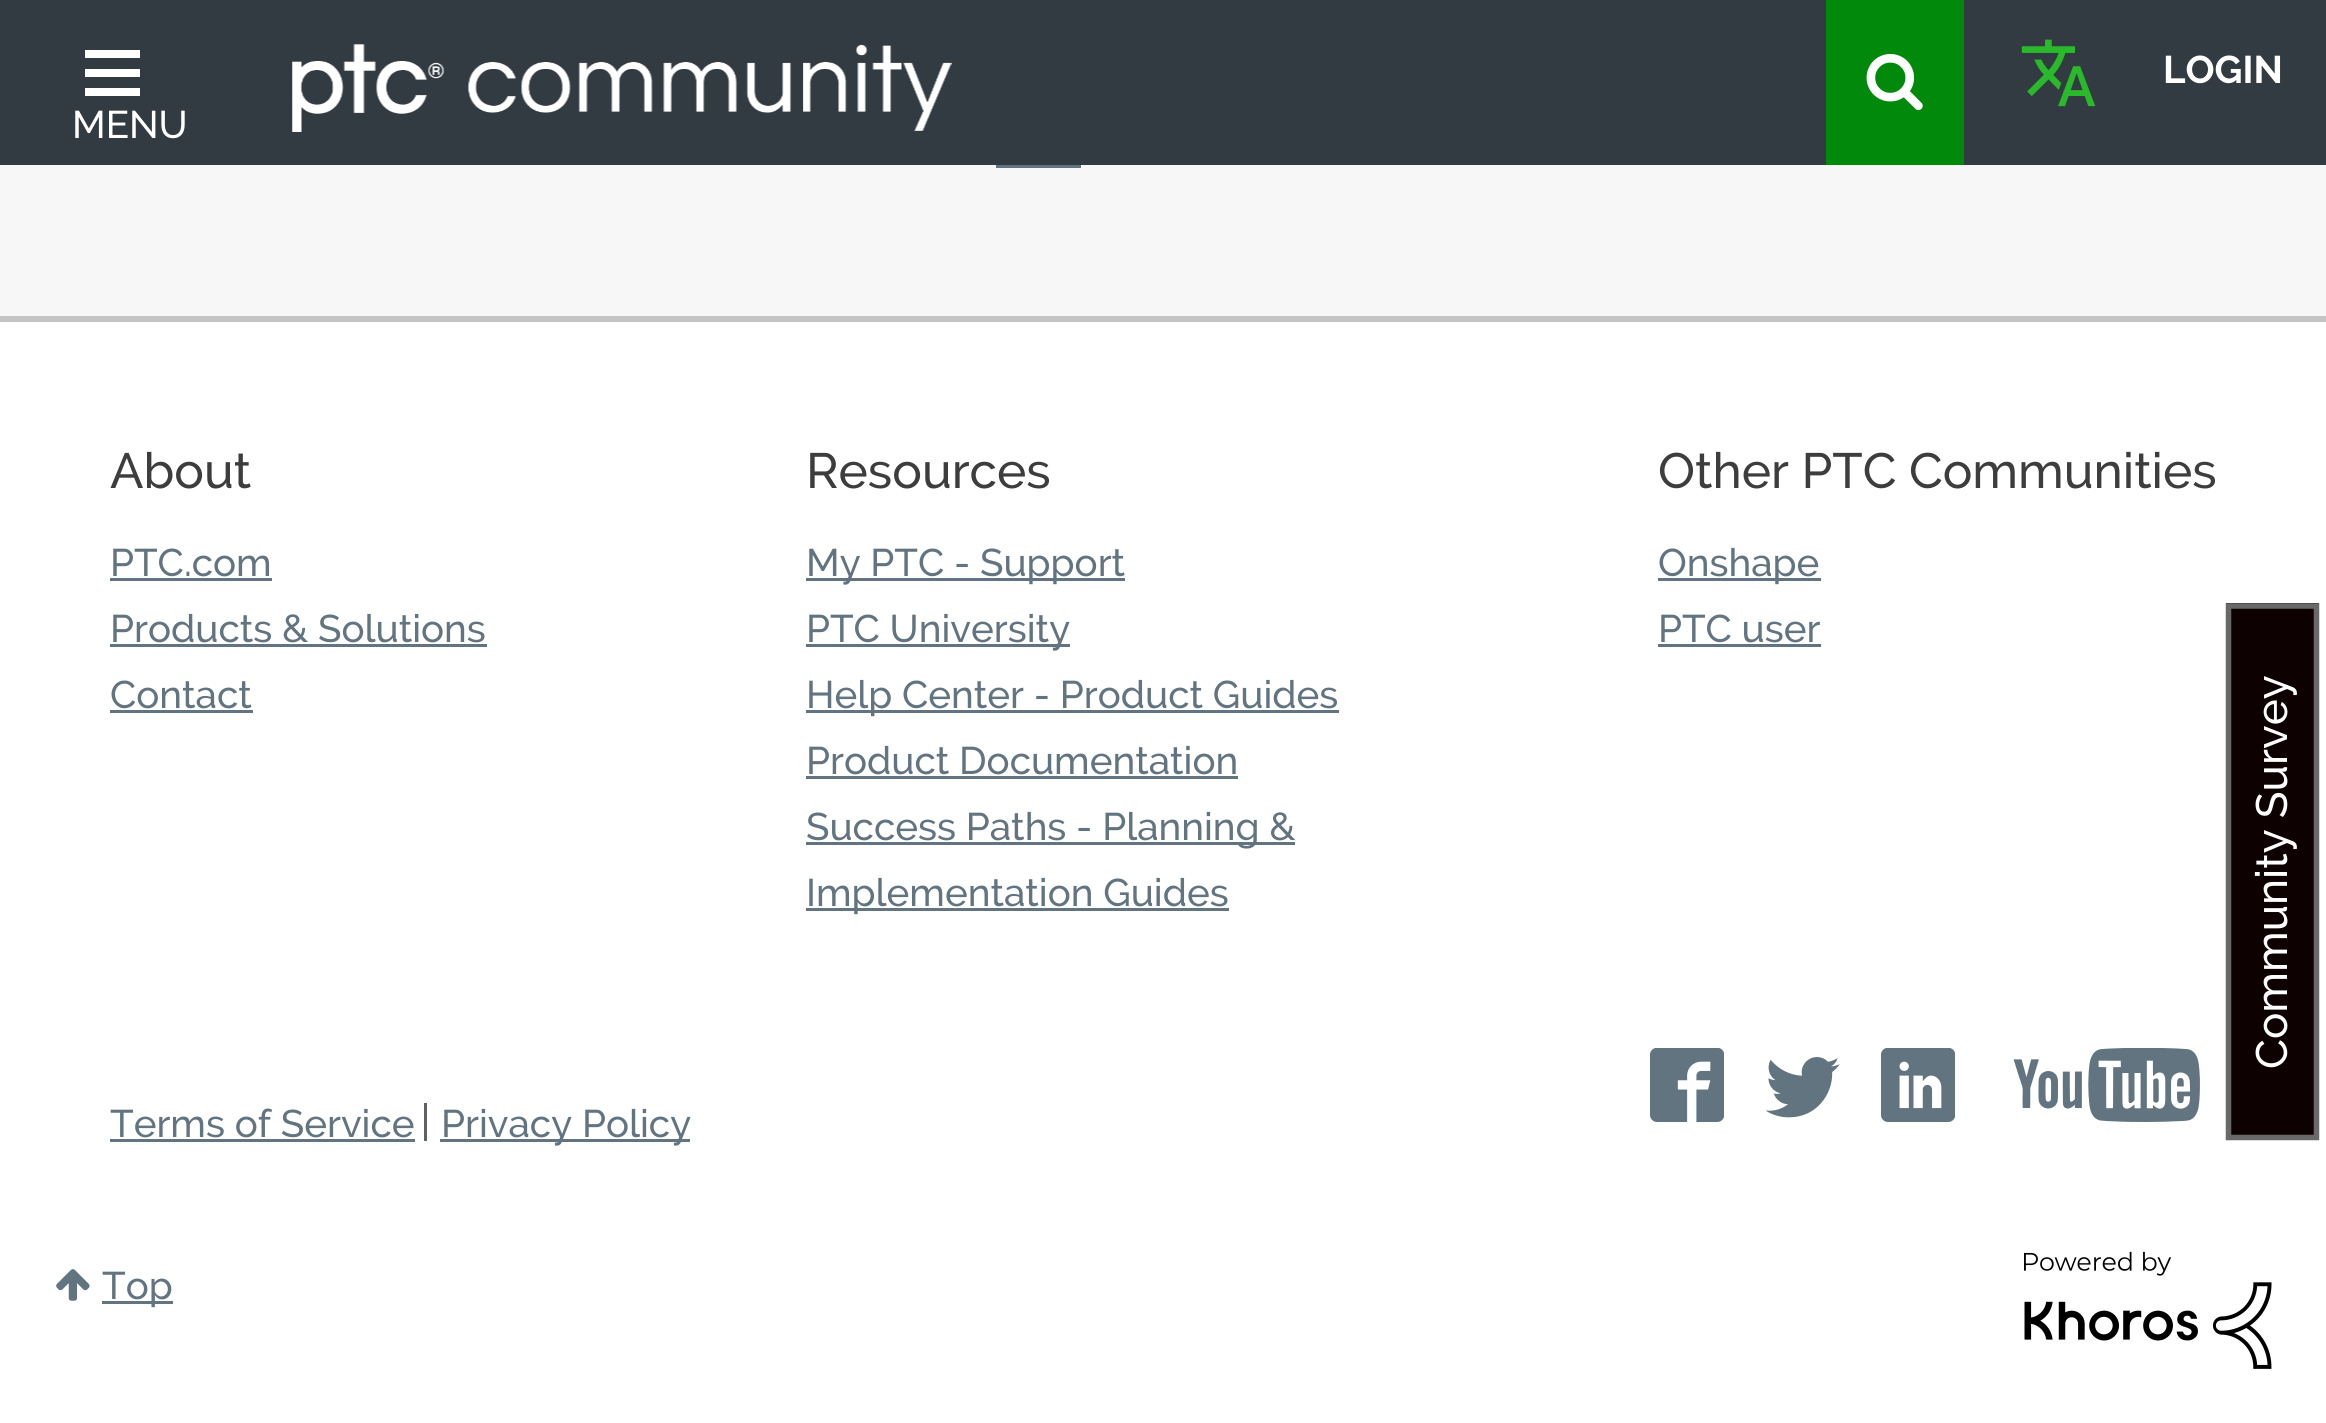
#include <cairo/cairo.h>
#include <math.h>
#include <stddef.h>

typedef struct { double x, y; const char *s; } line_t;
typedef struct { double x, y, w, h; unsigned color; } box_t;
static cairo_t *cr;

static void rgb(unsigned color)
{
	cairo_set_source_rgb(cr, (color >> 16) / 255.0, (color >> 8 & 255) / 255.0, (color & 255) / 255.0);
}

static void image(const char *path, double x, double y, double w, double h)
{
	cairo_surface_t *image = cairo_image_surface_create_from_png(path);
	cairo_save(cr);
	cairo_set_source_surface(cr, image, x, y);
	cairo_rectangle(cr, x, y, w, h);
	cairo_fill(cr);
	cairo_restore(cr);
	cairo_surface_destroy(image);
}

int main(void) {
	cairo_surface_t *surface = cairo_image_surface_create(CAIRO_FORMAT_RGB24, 2326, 1423);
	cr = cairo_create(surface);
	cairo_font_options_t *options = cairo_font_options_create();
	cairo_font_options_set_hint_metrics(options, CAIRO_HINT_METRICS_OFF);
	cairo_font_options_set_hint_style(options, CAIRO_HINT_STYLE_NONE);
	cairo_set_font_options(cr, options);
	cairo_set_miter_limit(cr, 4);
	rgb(0xf7f7f7);
	cairo_paint(cr);
	rgb(0x323b42);
	cairo_rectangle(cr, 0, 0, 2326, 165);
	cairo_fill(cr);
	rgb(0x00890b);
	cairo_rectangle(cr, 1826, 0, 138, 165);
	cairo_fill(cr);
	image("img/1.png", 1866, 53, 57, 58);
	image("img/2.png", 2021, 39, 75, 68);
	rgb(0xffffff);
	cairo_set_fill_rule(cr, CAIRO_FILL_RULE_EVEN_ODD);
	cairo_new_path(cr);
	cairo_move_to(cr, 85, 50);
	cairo_line_to(cr, 140, 50);
	cairo_line_to(cr, 140, 58);
	cairo_line_to(cr, 85, 58);
	cairo_close_path(cr);
	cairo_move_to(cr, 85, 69);
	cairo_line_to(cr, 140, 69);
	cairo_line_to(cr, 140, 77);
	cairo_line_to(cr, 85, 77);
	cairo_close_path(cr);
	cairo_move_to(cr, 85, 88);
	cairo_line_to(cr, 140, 88);
	cairo_line_to(cr, 140, 96);
	cairo_line_to(cr, 85, 96);
	cairo_close_path(cr);
	cairo_fill(cr);
	image("img/3.png", 292, 44, 660, 88);
	{
		static const box_t items[] = {
			{996, 165, 85, 3, 0x617480},
			{0, 322, 2326, 1101, 0xffffff},
			{0, 316, 2326, 6, 0xc4c4c4},
			{110, 578, 162, 3, 0x617480},
			{110, 644, 377, 3, 0x617480},
			{110, 710, 143, 3, 0x617480},
			{806, 578, 319, 3, 0x617480},
			{806, 644, 264, 3, 0x617480},
			{806, 710, 533, 3, 0x617480},
			{806, 776, 432, 3, 0x617480},
			{806, 842, 489, 3, 0x617480},
			{806, 908, 423, 3, 0x617480},
			{1658, 578, 163, 3, 0x617480},
			{1658, 644, 163, 3, 0x617480},
		};
		for (size_t i = 0; i < sizeof items / sizeof *items; i++) {
			rgb(items[i].color);
			cairo_rectangle(cr, items[i].x, items[i].y, items[i].w, items[i].h);
			cairo_fill(cr);
		}
	}
	image("img/4.png", 1650, 1048, 74, 74);
	image("img/5.png", 1766, 1057, 74, 61);
	image("img/6.png", 1881, 1048, 74, 74);
	image("img/7.png", 2013, 1048, 187, 74);
	{
		static const box_t items[] = {
			{110, 1139, 305, 3, 0x617480},
			{424, 1103, 3, 38, 0x5e6162},
			{440, 1139, 250, 3, 0x617480},
		};
		for (size_t i = 0; i < sizeof items / sizeof *items; i++) {
			rgb(items[i].color);
			cairo_rectangle(cr, items[i].x, items[i].y, items[i].w, items[i].h);
			cairo_fill(cr);
		}
	}
	image("img/8.png", 56, 1269, 34, 32);
	cairo_rectangle(cr, 102, 1301, 71, 3);
	cairo_fill(cr);
	image("img/9.png", 2024, 1251, 248, 118);
	rgb(0x0e0101);
	cairo_rectangle(cr, 2226, 603, 93, 532);
	cairo_fill(cr);
	cairo_new_path(cr);
	cairo_move_to(cr, 2228.5, 1137.5);
	cairo_line_to(cr, 2228.5, 606);
	cairo_line_to(cr, 2316.5, 606);
	cairo_line_to(cr, 2316.5, 1137.5);
	cairo_close_path(cr);
	rgb(0x696969);
	cairo_set_line_width(cr, 5.5);
	cairo_stroke(cr);
	cairo_select_font_face(cr, "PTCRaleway", CAIRO_FONT_SLANT_NORMAL, CAIRO_FONT_WEIGHT_BOLD);
	cairo_set_font_size(cr, 38.5);
	rgb(0xffffff);
	cairo_move_to(cr, 2163, 83);
	cairo_show_text(cr, "LOGIN");
	cairo_select_font_face(cr, "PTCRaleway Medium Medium", CAIRO_FONT_SLANT_NORMAL, CAIRO_FONT_WEIGHT_NORMAL);
	cairo_move_to(cr, 72, 138);
	cairo_show_text(cr, "MENU");
	cairo_set_font_size(cr, 49.5);
	rgb(0x3d3d3d);
	cairo_move_to(cr, 110, 488);
	cairo_show_text(cr, "About");
	cairo_set_font_size(cr, 38.5);
	rgb(0x617480);
	{
		static const line_t items[] = {
			{110, 576, "PTC.com"},
			{110, 642, "Products & Solutions"},
			{110, 708, "Contact"},
		};
		for (size_t i = 0; i < sizeof items / sizeof *items; i++) {
			cairo_move_to(cr, items[i].x, items[i].y);
			cairo_show_text(cr, items[i].s);
		}
	}
	cairo_set_font_size(cr, 49.5);
	rgb(0x3d3d3d);
	cairo_move_to(cr, 806, 488);
	cairo_show_text(cr, "Resources");
	cairo_set_font_size(cr, 38.5);
	rgb(0x617480);
	{
		static const line_t items[] = {
			{806, 576, "My PTC - Support"},
			{806, 642, "PTC University"},
			{806, 708, "Help Center - Product Guides"},
			{806, 774, "Product Documentation"},
			{806, 840, "Success Paths - Planning &"},
			{806, 906, "Implementation Guides"},
		};
		for (size_t i = 0; i < sizeof items / sizeof *items; i++) {
			cairo_move_to(cr, items[i].x, items[i].y);
			cairo_show_text(cr, items[i].s);
		}
	}
	cairo_set_font_size(cr, 49.5);
	rgb(0x3d3d3d);
	cairo_move_to(cr, 1658, 488);
	cairo_show_text(cr, "Other PTC Communities");
	cairo_set_font_size(cr, 38.5);
	rgb(0x617480);
	{
		static const line_t items[] = {
			{1658, 576, "Onshape"},
			{1658, 642, "PTC user"},
			{110, 1137, "Terms of Service"},
			{441, 1137, "Privacy Policy"},
			{102, 1299, "Top"},
		};
		for (size_t i = 0; i < sizeof items / sizeof *items; i++) {
			cairo_move_to(cr, items[i].x, items[i].y);
			cairo_show_text(cr, items[i].s);
		}
	}
	cairo_set_font_size(cr, 44);
	rgb(0xffffff);
	cairo_save(cr);
	cairo_translate(cr, 2287, 1069);
	cairo_rotate(cr, -90 * M_PI / 180);
	cairo_move_to(cr, 0, 0);
	cairo_show_text(cr, "Community Survey");
	cairo_restore(cr);
	cairo_surface_write_to_png(surface, "page.png");
	cairo_font_options_destroy(options);
	cairo_destroy(cr);
	cairo_surface_destroy(surface);
	return 0;
}
